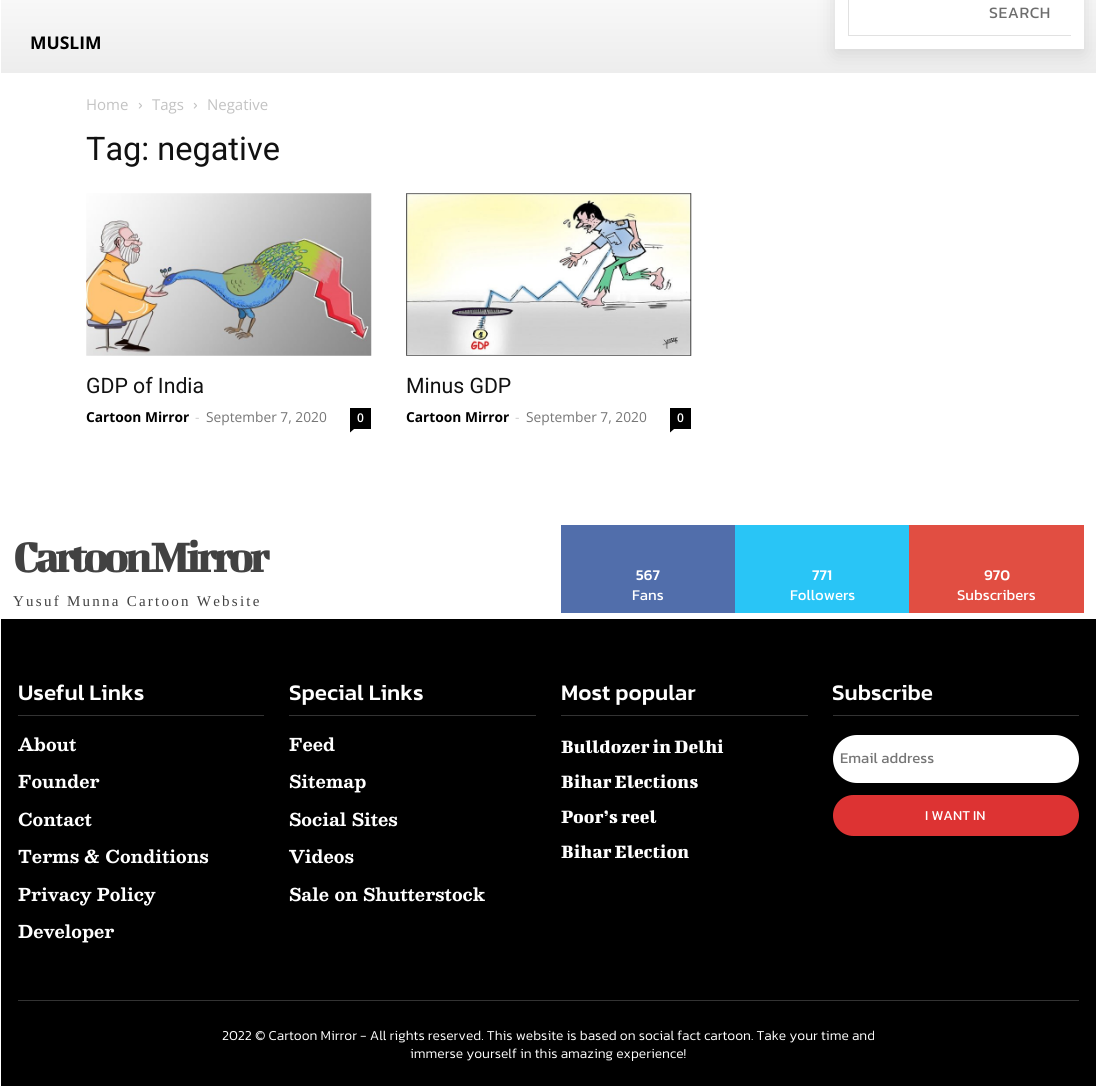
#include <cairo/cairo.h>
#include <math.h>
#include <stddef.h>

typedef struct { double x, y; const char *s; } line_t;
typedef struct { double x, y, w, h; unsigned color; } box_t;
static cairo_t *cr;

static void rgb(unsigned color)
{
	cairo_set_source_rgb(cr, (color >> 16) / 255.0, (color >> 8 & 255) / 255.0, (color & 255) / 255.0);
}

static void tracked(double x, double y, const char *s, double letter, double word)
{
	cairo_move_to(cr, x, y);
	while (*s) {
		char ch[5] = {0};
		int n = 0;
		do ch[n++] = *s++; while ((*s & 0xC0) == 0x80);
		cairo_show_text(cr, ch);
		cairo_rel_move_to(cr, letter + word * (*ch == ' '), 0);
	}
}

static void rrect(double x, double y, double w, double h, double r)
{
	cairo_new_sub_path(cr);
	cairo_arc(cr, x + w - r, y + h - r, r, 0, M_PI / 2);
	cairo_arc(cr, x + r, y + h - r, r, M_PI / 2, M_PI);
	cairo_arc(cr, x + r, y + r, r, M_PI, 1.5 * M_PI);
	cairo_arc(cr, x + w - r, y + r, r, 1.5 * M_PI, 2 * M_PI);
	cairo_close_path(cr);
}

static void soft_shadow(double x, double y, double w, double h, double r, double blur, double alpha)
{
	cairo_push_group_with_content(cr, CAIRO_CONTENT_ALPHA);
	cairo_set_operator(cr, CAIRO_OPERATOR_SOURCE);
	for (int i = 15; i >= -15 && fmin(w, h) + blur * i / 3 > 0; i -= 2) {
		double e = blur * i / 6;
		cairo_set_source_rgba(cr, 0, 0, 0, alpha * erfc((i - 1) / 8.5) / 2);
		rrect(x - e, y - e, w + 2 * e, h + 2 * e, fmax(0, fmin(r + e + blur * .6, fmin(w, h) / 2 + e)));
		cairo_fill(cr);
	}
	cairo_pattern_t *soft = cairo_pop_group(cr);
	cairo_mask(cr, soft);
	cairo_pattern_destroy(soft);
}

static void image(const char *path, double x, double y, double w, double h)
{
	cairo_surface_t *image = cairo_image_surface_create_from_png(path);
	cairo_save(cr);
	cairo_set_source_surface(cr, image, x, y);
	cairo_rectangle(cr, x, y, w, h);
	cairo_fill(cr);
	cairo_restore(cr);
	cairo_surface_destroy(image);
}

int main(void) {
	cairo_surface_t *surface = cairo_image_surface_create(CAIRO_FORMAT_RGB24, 1096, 1086);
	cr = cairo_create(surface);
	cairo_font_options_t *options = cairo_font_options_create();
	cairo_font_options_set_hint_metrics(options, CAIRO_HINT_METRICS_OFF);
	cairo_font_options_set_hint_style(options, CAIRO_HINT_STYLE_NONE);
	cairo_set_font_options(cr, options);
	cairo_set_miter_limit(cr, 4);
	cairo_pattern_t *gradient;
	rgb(0xffffff);
	cairo_paint(cr);
	gradient = cairo_pattern_create_linear(549, 73, 549, -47);
	cairo_pattern_add_color_stop_rgba(gradient, 0, 0.929, 0.929, 0.929, 1);
	cairo_pattern_add_color_stop_rgba(gradient, 1, 1, 1, 1, 1);
	cairo_set_source(cr, gradient);
	cairo_pattern_destroy(gradient);
	cairo_rectangle(cr, 1, 0, 1095, 73);
	cairo_fill(cr);
	rgb(0x000000);
	soft_shadow(835, -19, 249, 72, 0, 10, 0.12);
	{
		static const box_t items[] = {
			{835, 0, 249, 49, 0xffffff},
			{848, 35, 223, 1, 0xe1e1e1},
			{848, 0, 1, 36, 0xe1e1e1},
		};
		for (size_t i = 0; i < sizeof items / sizeof *items; i++) {
			rgb(items[i].color);
			cairo_rectangle(cr, items[i].x, items[i].y, items[i].w, items[i].h);
			cairo_fill(cr);
		}
	}
	image("img/1.png", 138, 102, 4, 7);
	image("img/1.png", 193, 102, 4, 7);
	image("img/2.png", 86, 193, 286, 163);
	rgb(0x000000);
	cairo_rectangle(cr, 350, 408, 21, 21);
	cairo_fill(cr);
	cairo_new_path(cr);
	cairo_move_to(cr, 350, 429);
	cairo_line_to(cr, 354, 429);
	cairo_line_to(cr, 350, 432.5);
	cairo_close_path(cr);
	cairo_fill(cr);
	image("img/3.png", 406, 193, 286, 163);
	cairo_rectangle(cr, 670, 408, 21, 21);
	cairo_fill(cr);
	cairo_new_path(cr);
	cairo_move_to(cr, 670, 429);
	cairo_line_to(cr, 674, 429);
	cairo_line_to(cr, 670, 432.5);
	cairo_close_path(cr);
	cairo_fill(cr);
	{
		static const box_t items[] = {
			{561, 525, 174, 88, 0x516eab},
			{735, 525, 174, 88, 0x29c5f6},
			{909, 525, 175, 88, 0xe14e42},
			{1, 619, 1095, 467, 0x000000},
			{18, 715, 246, 1, 0x333333},
			{289, 715, 247, 1, 0x333333},
			{561, 715, 247, 1, 0x333333},
			{833, 715, 246, 1, 0x333333},
		};
		for (size_t i = 0; i < sizeof items / sizeof *items; i++) {
			rgb(items[i].color);
			cairo_rectangle(cr, items[i].x, items[i].y, items[i].w, items[i].h);
			cairo_fill(cr);
		}
	}
	rgb(0xffffff);
	rrect(833, 735, 246, 48, 24);
	cairo_fill(cr);
	rgb(0xdd3333);
	rrect(833, 795, 246, 41, 20.5);
	cairo_fill(cr);
	rgb(0x333333);
	cairo_rectangle(cr, 18, 1000, 1061, 1);
	cairo_fill(cr);
	cairo_select_font_face(cr, "Kanit", CAIRO_FONT_SLANT_NORMAL, CAIRO_FONT_WEIGHT_NORMAL);
	cairo_set_font_size(cr, 16);
	rgb(0x6d6d6d);
	tracked(989, 18, "SEARCH", 0.5, 0);
	cairo_select_font_face(cr, "Open Sans", CAIRO_FONT_SLANT_NORMAL, CAIRO_FONT_WEIGHT_BOLD);
	cairo_set_font_size(cr, 17.5);
	rgb(0x000000);
	cairo_move_to(cr, 30, 49);
	cairo_show_text(cr, "MUSLIM");
	cairo_select_font_face(cr, "Open Sans", CAIRO_FONT_SLANT_NORMAL, CAIRO_FONT_WEIGHT_NORMAL);
	cairo_set_font_size(cr, 15);
	rgb(0xc3c3c3);
	{
		static const line_t items[] = {
			{86, 110, "Home"},
			{152, 110, "Tags"},
			{207, 110, "Negative"},
		};
		for (size_t i = 0; i < sizeof items / sizeof *items; i++) {
			cairo_move_to(cr, items[i].x, items[i].y);
			cairo_show_text(cr, items[i].s);
		}
	}
	cairo_select_font_face(cr, "Roboto", CAIRO_FONT_SLANT_NORMAL, CAIRO_FONT_WEIGHT_NORMAL);
	cairo_set_font_size(cr, 32.5);
	rgb(0x111111);
	cairo_move_to(cr, 86, 160);
	cairo_show_text(cr, "Tag: negative");
	cairo_set_font_size(cr, 21.25);
	cairo_move_to(cr, 86, 393);
	cairo_show_text(cr, "GDP of India");
	cairo_select_font_face(cr, "Open Sans", CAIRO_FONT_SLANT_NORMAL, CAIRO_FONT_WEIGHT_BOLD);
	cairo_set_font_size(cr, 13.75);
	rgb(0x000000);
	cairo_move_to(cr, 86, 422);
	cairo_show_text(cr, "Cartoon Mirror");
	cairo_select_font_face(cr, "Open Sans", CAIRO_FONT_SLANT_NORMAL, CAIRO_FONT_WEIGHT_NORMAL);
	rgb(0xcccccc);
	cairo_move_to(cr, 195, 422);
	cairo_show_text(cr, "-");
	rgb(0x767676);
	cairo_move_to(cr, 206, 422);
	cairo_show_text(cr, "September 7, 2020");
	cairo_select_font_face(cr, "Open Sans SemiBold", CAIRO_FONT_SLANT_NORMAL, CAIRO_FONT_WEIGHT_NORMAL);
	cairo_set_font_size(cr, 12);
	rgb(0xffffff);
	cairo_move_to(cr, 357, 422);
	cairo_show_text(cr, "0");
	cairo_select_font_face(cr, "Roboto", CAIRO_FONT_SLANT_NORMAL, CAIRO_FONT_WEIGHT_NORMAL);
	cairo_set_font_size(cr, 21.25);
	rgb(0x111111);
	cairo_move_to(cr, 406, 393);
	cairo_show_text(cr, "Minus GDP");
	cairo_select_font_face(cr, "Open Sans", CAIRO_FONT_SLANT_NORMAL, CAIRO_FONT_WEIGHT_BOLD);
	cairo_set_font_size(cr, 13.75);
	rgb(0x000000);
	cairo_move_to(cr, 406, 422);
	cairo_show_text(cr, "Cartoon Mirror");
	cairo_select_font_face(cr, "Open Sans", CAIRO_FONT_SLANT_NORMAL, CAIRO_FONT_WEIGHT_NORMAL);
	rgb(0xcccccc);
	cairo_move_to(cr, 515, 422);
	cairo_show_text(cr, "-");
	rgb(0x767676);
	cairo_move_to(cr, 526, 422);
	cairo_show_text(cr, "September 7, 2020");
	cairo_select_font_face(cr, "Open Sans SemiBold", CAIRO_FONT_SLANT_NORMAL, CAIRO_FONT_WEIGHT_NORMAL);
	cairo_set_font_size(cr, 12);
	rgb(0xffffff);
	cairo_move_to(cr, 677, 422);
	cairo_show_text(cr, "0");
	cairo_select_font_face(cr, "Bigshot One", CAIRO_FONT_SLANT_NORMAL, CAIRO_FONT_WEIGHT_NORMAL);
	cairo_set_font_size(cr, 47.5);
	rgb(0x424242);
	tracked(13, 572, "Cartoon Mirror", -5, 0);
	cairo_select_font_face(cr, "Liberation Serif", CAIRO_FONT_SLANT_NORMAL, CAIRO_FONT_WEIGHT_NORMAL);
	cairo_set_font_size(cr, 15);
	tracked(13, 606, "Yusuf Munna Cartoon Website", 2.25, 0);
	cairo_select_font_face(cr, "Kanit Medium", CAIRO_FONT_SLANT_NORMAL, CAIRO_FONT_WEIGHT_NORMAL);
	rgb(0xffffff);
	cairo_move_to(cr, 636, 580);
	cairo_show_text(cr, "567");
	cairo_select_font_face(cr, "Kanit", CAIRO_FONT_SLANT_NORMAL, CAIRO_FONT_WEIGHT_NORMAL);
	cairo_move_to(cr, 632, 600);
	cairo_show_text(cr, "Fans");
	cairo_select_font_face(cr, "Kanit Medium", CAIRO_FONT_SLANT_NORMAL, CAIRO_FONT_WEIGHT_NORMAL);
	cairo_move_to(cr, 812, 580);
	cairo_show_text(cr, "771");
	cairo_select_font_face(cr, "Kanit", CAIRO_FONT_SLANT_NORMAL, CAIRO_FONT_WEIGHT_NORMAL);
	cairo_move_to(cr, 790, 600);
	cairo_show_text(cr, "Followers");
	cairo_select_font_face(cr, "Kanit Medium", CAIRO_FONT_SLANT_NORMAL, CAIRO_FONT_WEIGHT_NORMAL);
	cairo_move_to(cr, 984, 580);
	cairo_show_text(cr, "970");
	cairo_select_font_face(cr, "Kanit", CAIRO_FONT_SLANT_NORMAL, CAIRO_FONT_WEIGHT_NORMAL);
	cairo_move_to(cr, 957, 600);
	cairo_show_text(cr, "Subscribers");
	cairo_select_font_face(cr, "Kanit Medium", CAIRO_FONT_SLANT_NORMAL, CAIRO_FONT_WEIGHT_NORMAL);
	cairo_set_font_size(cr, 22.5);
	cairo_move_to(cr, 18, 700);
	cairo_show_text(cr, "Useful Links");
	cairo_select_font_face(cr, "Besley", CAIRO_FONT_SLANT_NORMAL, CAIRO_FONT_WEIGHT_BOLD);
	cairo_set_font_size(cr, 17.5);
	{
		static const line_t items[] = {
			{18, 751, "About"},
			{18, 788, "Founder"},
			{18, 826, "Contact"},
			{18, 863, "Terms & Conditions"},
			{18, 901, "Privacy Policy"},
			{18, 938, "Developer"},
		};
		for (size_t i = 0; i < sizeof items / sizeof *items; i++) {
			cairo_move_to(cr, items[i].x, items[i].y);
			cairo_show_text(cr, items[i].s);
		}
	}
	cairo_select_font_face(cr, "Kanit Medium", CAIRO_FONT_SLANT_NORMAL, CAIRO_FONT_WEIGHT_NORMAL);
	cairo_set_font_size(cr, 22.5);
	cairo_move_to(cr, 289, 700);
	cairo_show_text(cr, "Special Links");
	cairo_select_font_face(cr, "Besley", CAIRO_FONT_SLANT_NORMAL, CAIRO_FONT_WEIGHT_BOLD);
	cairo_set_font_size(cr, 17.5);
	{
		static const line_t items[] = {
			{289, 751, "Feed"},
			{289, 788, "Sitemap"},
			{289, 826, "Social Sites"},
			{289, 863, "Videos"},
			{289, 901, "Sale on Shutterstock"},
		};
		for (size_t i = 0; i < sizeof items / sizeof *items; i++) {
			cairo_move_to(cr, items[i].x, items[i].y);
			cairo_show_text(cr, items[i].s);
		}
	}
	cairo_select_font_face(cr, "Kanit Medium", CAIRO_FONT_SLANT_NORMAL, CAIRO_FONT_WEIGHT_NORMAL);
	cairo_set_font_size(cr, 22.5);
	cairo_move_to(cr, 561, 700);
	cairo_show_text(cr, "Most popular");
	cairo_select_font_face(cr, "Bigshot One", CAIRO_FONT_SLANT_NORMAL, CAIRO_FONT_WEIGHT_NORMAL);
	cairo_set_font_size(cr, 20);
	{
		static const line_t items[] = {
			{561, 753, "Bulldozer in Delhi"},
			{561, 788, "Bihar Elections"},
			{561, 823, "Poor’s reel"},
			{561, 858, "Bihar Election"},
		};
		for (size_t i = 0; i < sizeof items / sizeof *items; i++) {
			cairo_move_to(cr, items[i].x, items[i].y);
			cairo_show_text(cr, items[i].s);
		}
	}
	cairo_select_font_face(cr, "Kanit Medium", CAIRO_FONT_SLANT_NORMAL, CAIRO_FONT_WEIGHT_NORMAL);
	cairo_set_font_size(cr, 22.5);
	cairo_move_to(cr, 832, 700);
	cairo_show_text(cr, "Subscribe");
	cairo_select_font_face(cr, "Kanit", CAIRO_FONT_SLANT_NORMAL, CAIRO_FONT_WEIGHT_NORMAL);
	cairo_set_font_size(cr, 15);
	rgb(0x767676);
	cairo_move_to(cr, 840, 763);
	cairo_show_text(cr, "Email address");
	cairo_set_font_size(cr, 13.75);
	rgb(0xffffff);
	cairo_move_to(cr, 925, 820);
	cairo_show_text(cr, "I WANT IN");
	cairo_select_font_face(cr, "Kanit Light", CAIRO_FONT_SLANT_NORMAL, CAIRO_FONT_WEIGHT_NORMAL);
	cairo_move_to(cr, 222, 1040);
	cairo_show_text(cr, "2022 © Cartoon Mirror - All rights reserved. This website is based on social fact cartoon. Take your time and");
	cairo_move_to(cr, 410, 1058);
	cairo_show_text(cr, "immerse yourself in this amazing experience!");
	cairo_surface_write_to_png(surface, "page.png");
	cairo_font_options_destroy(options);
	cairo_destroy(cr);
	cairo_surface_destroy(surface);
	return 0;
}
